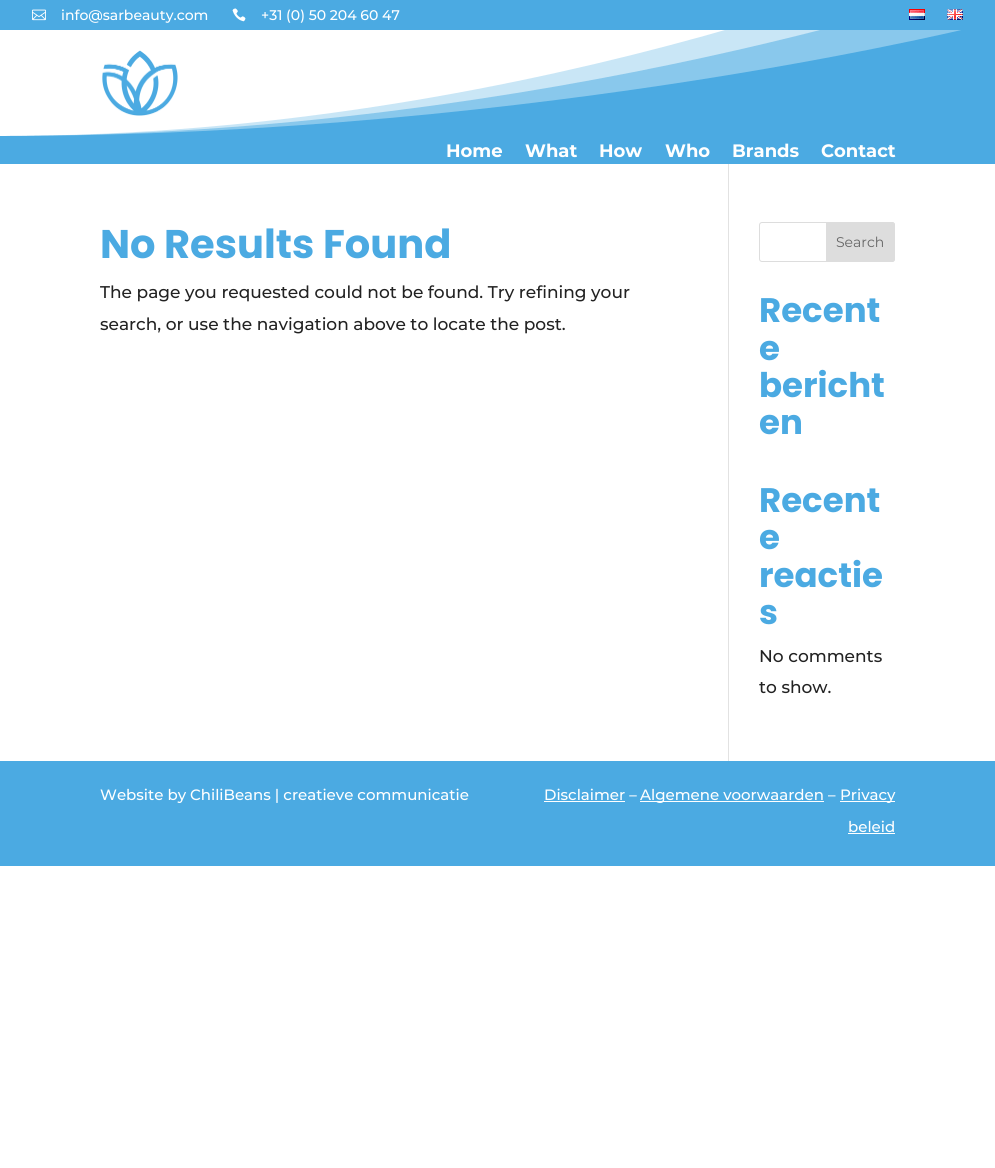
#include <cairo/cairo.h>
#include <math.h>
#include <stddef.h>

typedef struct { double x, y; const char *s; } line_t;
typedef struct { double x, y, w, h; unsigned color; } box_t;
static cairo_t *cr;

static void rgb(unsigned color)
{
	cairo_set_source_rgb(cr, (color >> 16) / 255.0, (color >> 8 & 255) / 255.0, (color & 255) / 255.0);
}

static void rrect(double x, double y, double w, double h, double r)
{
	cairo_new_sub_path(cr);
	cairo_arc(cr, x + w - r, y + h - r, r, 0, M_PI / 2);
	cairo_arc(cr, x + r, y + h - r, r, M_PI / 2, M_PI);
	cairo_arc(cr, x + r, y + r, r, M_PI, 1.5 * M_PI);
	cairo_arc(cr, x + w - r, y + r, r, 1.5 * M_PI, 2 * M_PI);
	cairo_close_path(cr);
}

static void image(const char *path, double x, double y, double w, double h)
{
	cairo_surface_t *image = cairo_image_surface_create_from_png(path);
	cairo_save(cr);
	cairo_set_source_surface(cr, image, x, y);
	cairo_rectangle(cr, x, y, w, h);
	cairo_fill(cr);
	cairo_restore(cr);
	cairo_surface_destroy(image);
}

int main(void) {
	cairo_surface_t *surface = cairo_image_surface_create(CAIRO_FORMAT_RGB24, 995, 1168);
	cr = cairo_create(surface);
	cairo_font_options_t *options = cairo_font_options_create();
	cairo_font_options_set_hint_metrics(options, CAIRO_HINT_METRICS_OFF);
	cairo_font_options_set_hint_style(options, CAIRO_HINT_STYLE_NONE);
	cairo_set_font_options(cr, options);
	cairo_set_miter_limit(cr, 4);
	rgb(0xffffff);
	cairo_paint(cr);
	rgb(0xc9e6f6);
	cairo_new_path(cr);
	cairo_move_to(cr, 995, 136);
	cairo_line_to(cr, 0, 136);
	cairo_curve_to(cr, 550, 136, 995, -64, 995, -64);
	cairo_close_path(cr);
	cairo_fill(cr);
	cairo_set_source_rgba(cr, 0.294, 0.667, 0.886, 0.5);
	cairo_new_path(cr);
	cairo_move_to(cr, 995, 136);
	cairo_line_to(cr, 0, 136);
	cairo_curve_to(cr, 550, 136, 995, -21, 995, -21);
	cairo_close_path(cr);
	cairo_fill(cr);
	rgb(0x4baae2);
	cairo_new_path(cr);
	cairo_move_to(cr, 995, 136);
	cairo_line_to(cr, 0, 136);
	cairo_curve_to(cr, 550, 136, 995, 22, 995, 22);
	cairo_close_path(cr);
	cairo_fill(cr);
	image("img/1.png", 102, 50, 76, 66);
	cairo_rectangle(cr, 0, 0, 995, 30);
	cairo_fill(cr);
	image("img/2.png", 32, 9, 14, 12);
	image("img/3.png", 232, 8, 14, 14);
	image("img/4.png", 909, 9, 16, 11);
	image("img/5.png", 947, 9, 16, 11);
	cairo_rectangle(cr, 0, 136, 995, 28);
	cairo_fill(cr);
	rgb(0xe2e2e2);
	cairo_rectangle(cr, 728, 164, 1, 597);
	cairo_fill(cr);
	rrect(759.5, 222.5, 135, 39, 2.5);
	rgb(0xdddddd);
	cairo_set_line_width(cr, 1);
	cairo_stroke(cr);
	cairo_new_path(cr);
	cairo_move_to(cr, 826.5, 222.5);
	cairo_line_to(cr, 892, 222.5);
	cairo_curve_to(cr, 893.5, 222.5, 894.5, 223.5, 894.5, 225);
	cairo_line_to(cr, 894.5, 259);
	cairo_curve_to(cr, 894.5, 260.5, 893.5, 261.5, 892, 261.5);
	cairo_line_to(cr, 826.5, 261.5);
	cairo_close_path(cr);
	cairo_fill_preserve(cr);
	cairo_stroke(cr);
	{
		static const box_t items[] = {
			{0, 761, 995, 105, 0x4baae2},
			{544, 801, 81, 1, 0xffffff},
			{640, 801, 184, 1, 0xffffff},
			{840, 801, 55, 1, 0xffffff},
			{848, 833, 47, 1, 0xffffff},
		};
		for (size_t i = 0; i < sizeof items / sizeof *items; i++) {
			rgb(items[i].color);
			cairo_rectangle(cr, items[i].x, items[i].y, items[i].w, items[i].h);
			cairo_fill(cr);
		}
	}
	cairo_select_font_face(cr, "Montserrat Medium", CAIRO_FONT_SLANT_NORMAL, CAIRO_FONT_WEIGHT_NORMAL);
	cairo_set_font_size(cr, 14);
	cairo_move_to(cr, 61, 20);
	cairo_show_text(cr, "info@sarbeauty.com");
	cairo_move_to(cr, 261, 20);
	cairo_show_text(cr, "+31 (0) 50 204 60 47");
	cairo_select_font_face(cr, "Montserrat", CAIRO_FONT_SLANT_NORMAL, CAIRO_FONT_WEIGHT_BOLD);
	cairo_set_font_size(cr, 18);
	{
		static const line_t items[] = {
			{446, 157, "Home"},
			{525, 157, "What"},
			{599, 157, "How"},
			{665, 157, "Who"},
			{732, 157, "Brands"},
			{821, 157, "Contact"},
		};
		for (size_t i = 0; i < sizeof items / sizeof *items; i++) {
			cairo_move_to(cr, items[i].x, items[i].y);
			cairo_show_text(cr, items[i].s);
		}
	}
	cairo_select_font_face(cr, "Poppins", CAIRO_FONT_SLANT_NORMAL, CAIRO_FONT_WEIGHT_BOLD);
	cairo_set_font_size(cr, 40);
	rgb(0x4baae2);
	cairo_move_to(cr, 100, 258);
	cairo_show_text(cr, "No Results Found");
	cairo_select_font_face(cr, "Montserrat Medium", CAIRO_FONT_SLANT_NORMAL, CAIRO_FONT_WEIGHT_NORMAL);
	cairo_set_font_size(cr, 17);
	rgb(0x222222);
	cairo_move_to(cr, 100, 298);
	cairo_show_text(cr, "The page you requested could not be found. Try refining your");
	cairo_move_to(cr, 100, 330);
	cairo_show_text(cr, "search, or use the navigation above to locate the post.");
	cairo_select_font_face(cr, "Montserrat", CAIRO_FONT_SLANT_NORMAL, CAIRO_FONT_WEIGHT_NORMAL);
	cairo_set_font_size(cr, 14);
	rgb(0x666666);
	cairo_move_to(cr, 836, 247);
	cairo_show_text(cr, "Search");
	cairo_select_font_face(cr, "Poppins", CAIRO_FONT_SLANT_NORMAL, CAIRO_FONT_WEIGHT_BOLD);
	cairo_set_font_size(cr, 34);
	rgb(0x4baae2);
	{
		static const line_t items[] = {
			{759, 322, "Recent"},
			{759, 360, "e"},
			{759, 397, "bericht"},
			{759, 434, "en"},
			{759, 512, "Recent"},
			{759, 549, "e"},
			{759, 587, "reactie"},
			{759, 624, "s"},
		};
		for (size_t i = 0; i < sizeof items / sizeof *items; i++) {
			cairo_move_to(cr, items[i].x, items[i].y);
			cairo_show_text(cr, items[i].s);
		}
	}
	cairo_select_font_face(cr, "Montserrat Medium", CAIRO_FONT_SLANT_NORMAL, CAIRO_FONT_WEIGHT_NORMAL);
	cairo_set_font_size(cr, 17);
	rgb(0x222222);
	cairo_move_to(cr, 759, 662);
	cairo_show_text(cr, "No comments");
	cairo_move_to(cr, 759, 693);
	cairo_show_text(cr, "to show.");
	cairo_set_font_size(cr, 15);
	rgb(0xffffff);
	{
		static const line_t items[] = {
			{100, 800, "Website by ChiliBeans | creatieve communicatie"},
			{544, 800, "Disclaimer –"},
			{640, 800, "Algemene voorwaarden –"},
			{840, 800, "Privacy"},
			{848, 832, "beleid"},
		};
		for (size_t i = 0; i < sizeof items / sizeof *items; i++) {
			cairo_move_to(cr, items[i].x, items[i].y);
			cairo_show_text(cr, items[i].s);
		}
	}
	cairo_surface_write_to_png(surface, "page.png");
	cairo_font_options_destroy(options);
	cairo_destroy(cr);
	cairo_surface_destroy(surface);
	return 0;
}
